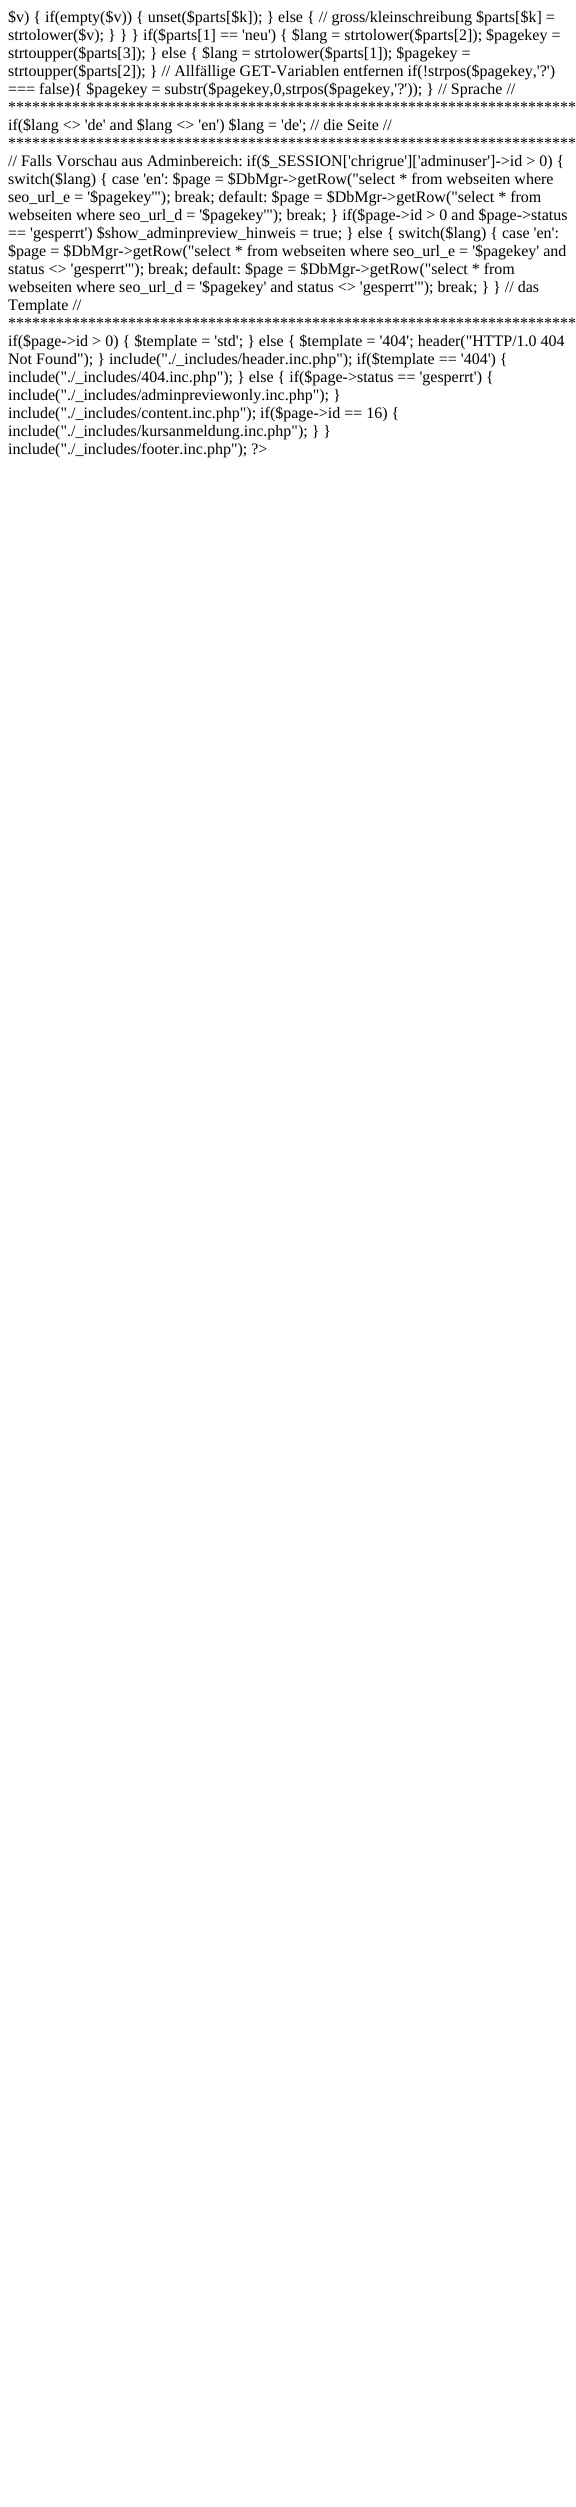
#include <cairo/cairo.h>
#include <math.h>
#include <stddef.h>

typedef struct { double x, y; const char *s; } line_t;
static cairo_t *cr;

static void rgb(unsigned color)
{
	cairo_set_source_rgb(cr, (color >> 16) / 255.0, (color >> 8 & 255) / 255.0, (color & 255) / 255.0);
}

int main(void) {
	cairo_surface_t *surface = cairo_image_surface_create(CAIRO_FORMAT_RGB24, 576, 2507);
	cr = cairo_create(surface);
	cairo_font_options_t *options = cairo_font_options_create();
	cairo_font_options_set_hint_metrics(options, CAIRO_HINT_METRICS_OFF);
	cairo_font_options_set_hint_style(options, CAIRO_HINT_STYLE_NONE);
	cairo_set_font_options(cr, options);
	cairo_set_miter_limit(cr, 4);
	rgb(0xffffff);
	cairo_paint(cr);
	cairo_select_font_face(cr, "Liberation Serif", CAIRO_FONT_SLANT_NORMAL, CAIRO_FONT_WEIGHT_NORMAL);
	cairo_set_font_size(cr, 16);
	rgb(0x000000);
	{
		static const line_t items[] = {
			{8, 22, "$v) { if(empty($v)) { unset($parts[$k]); } else { // gross/kleinschreibung $parts[$k] ="},
			{8, 40, "strtolower($v); } } } if($parts[1] == 'neu') { $lang = strtolower($parts[2]); $pagekey ="},
			{8, 58, "strtoupper($parts[3]); } else { $lang = strtolower($parts[1]); $pagekey ="},
			{8, 76, "strtoupper($parts[2]); } // Allfällige GET-Variablen entfernen if(!strpos($pagekey,'?')"},
			{8, 94, "=== false){ $pagekey = substr($pagekey,0,strpos($pagekey,'?')); } // Sprache //"},
			{8, 112, "***********************************************************************"},
			{8, 130, "if($lang <> 'de' and $lang <> 'en') $lang = 'de'; // die Seite //"},
			{8, 148, "***********************************************************************"},
			{8, 166, "// Falls Vorschau aus Adminbereich: if($_SESSION['chrigrue']['adminuser']->id > 0) {"},
			{8, 184, "switch($lang) { case 'en': $page = $DbMgr->getRow(\"select * from webseiten where"},
			{8, 202, "seo_url_e = '$pagekey'\"); break; default: $page = $DbMgr->getRow(\"select * from"},
			{8, 220, "webseiten where seo_url_d = '$pagekey'\"); break; } if($page->id > 0 and $page->status"},
			{8, 238, "== 'gesperrt') $show_adminpreview_hinweis = true; } else { switch($lang) { case 'en':"},
			{8, 256, "$page = $DbMgr->getRow(\"select * from webseiten where seo_url_e = '$pagekey' and"},
			{8, 274, "status <> 'gesperrt'\"); break; default: $page = $DbMgr->getRow(\"select * from"},
			{8, 292, "webseiten where seo_url_d = '$pagekey' and status <> 'gesperrt'\"); break; } } // das"},
			{8, 310, "Template //"},
			{8, 328, "***********************************************************************"},
			{8, 346, "if($page->id > 0) { $template = 'std'; } else { $template = '404'; header(\"HTTP/1.0 404"},
			{8, 364, "Not Found\"); } include(\"./_includes/header.inc.php\"); if($template == '404') {"},
			{8, 382, "include(\"./_includes/404.inc.php\"); } else { if($page->status == 'gesperrt') {"},
			{8, 400, "include(\"./_includes/adminpreviewonly.inc.php\"); }"},
			{8, 418, "include(\"./_includes/content.inc.php\"); if($page->id == 16) {"},
			{8, 436, "include(\"./_includes/kursanmeldung.inc.php\"); } }"},
			{8, 454, "include(\"./_includes/footer.inc.php\"); ?>"},
		};
		for (size_t i = 0; i < sizeof items / sizeof *items; i++) {
			cairo_move_to(cr, items[i].x, items[i].y);
			cairo_show_text(cr, items[i].s);
		}
	}
	cairo_surface_write_to_png(surface, "page.png");
	cairo_font_options_destroy(options);
	cairo_destroy(cr);
	cairo_surface_destroy(surface);
	return 0;
}
